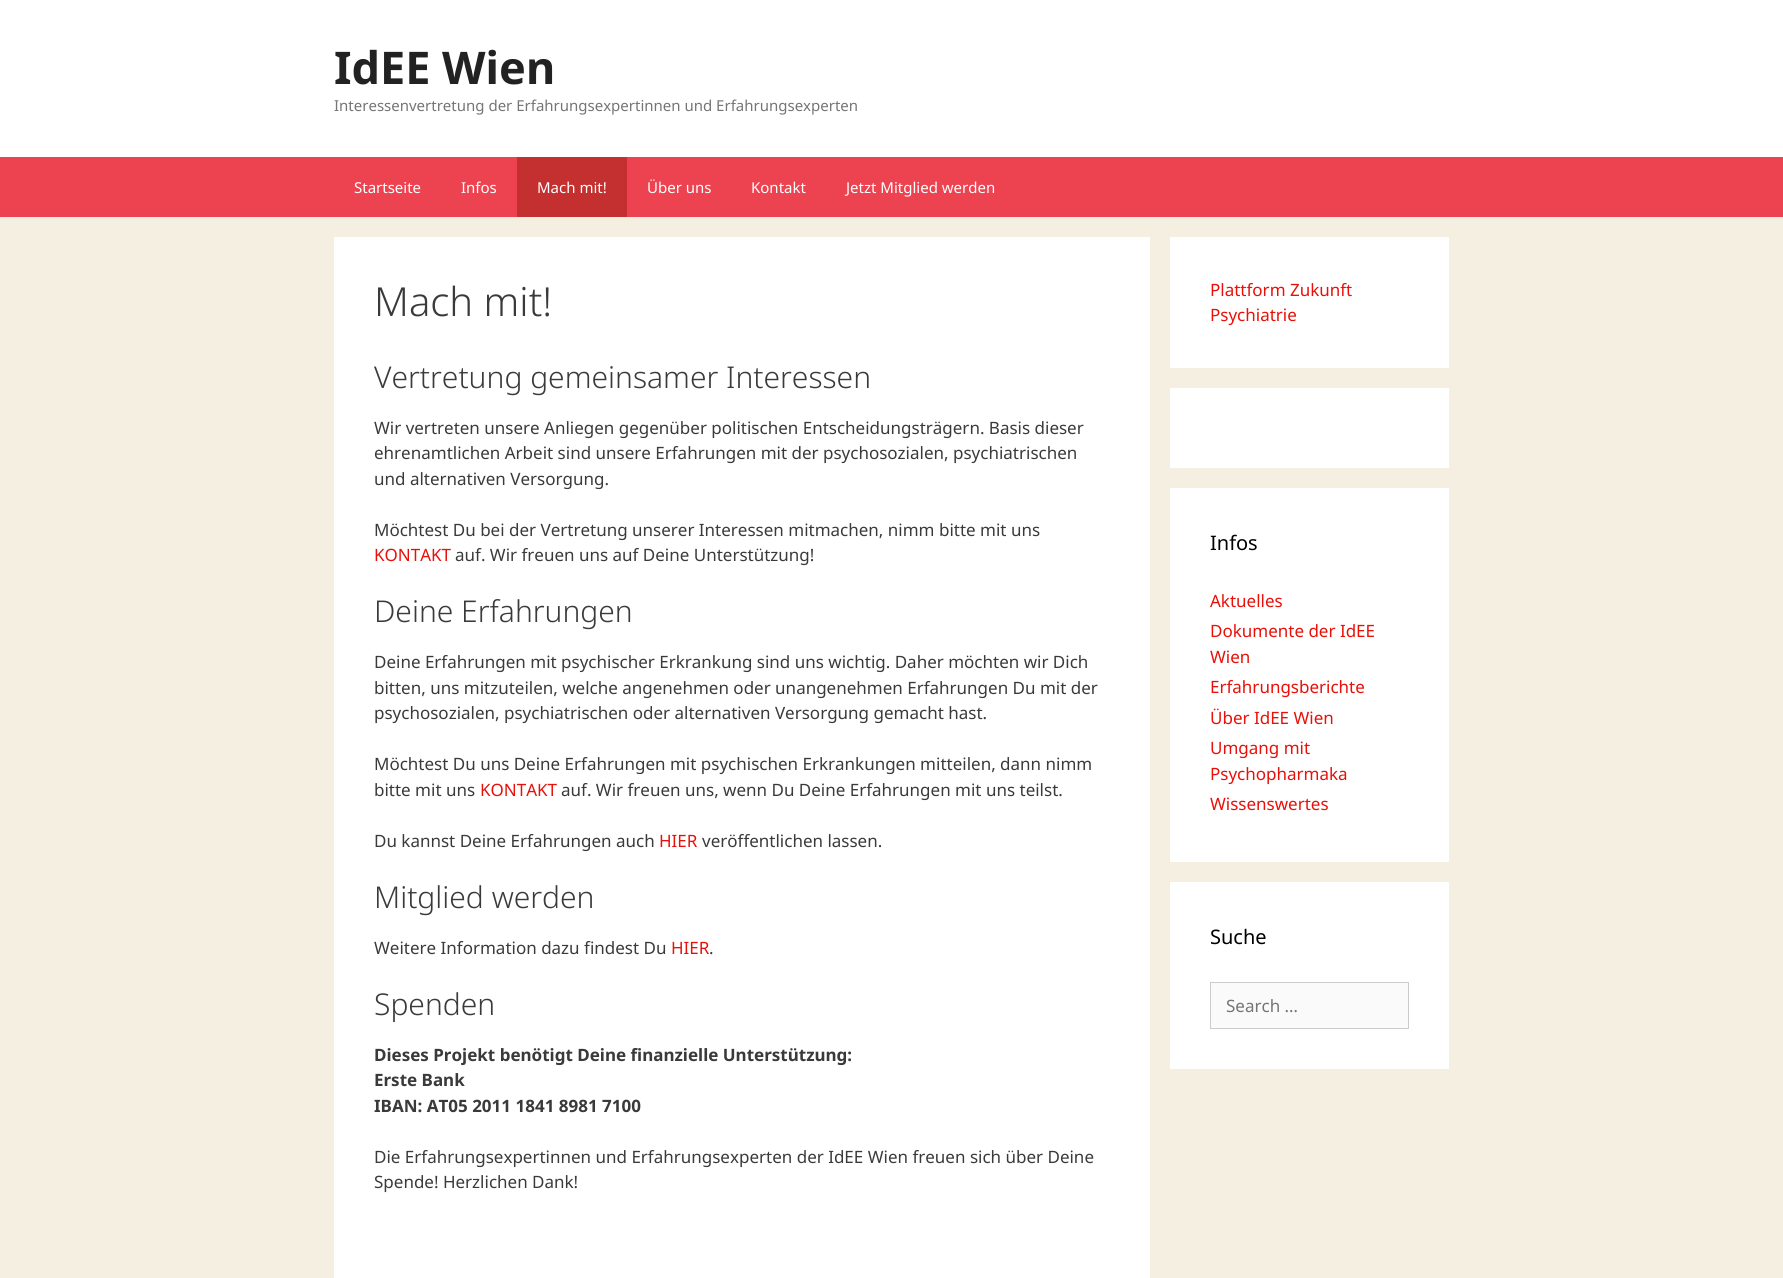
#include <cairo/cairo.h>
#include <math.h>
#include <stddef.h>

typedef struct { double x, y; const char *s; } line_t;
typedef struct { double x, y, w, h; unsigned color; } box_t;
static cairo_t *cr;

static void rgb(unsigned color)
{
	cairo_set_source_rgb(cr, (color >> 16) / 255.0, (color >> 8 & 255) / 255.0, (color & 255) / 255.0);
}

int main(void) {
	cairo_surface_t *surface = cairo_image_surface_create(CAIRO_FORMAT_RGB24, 1783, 1278);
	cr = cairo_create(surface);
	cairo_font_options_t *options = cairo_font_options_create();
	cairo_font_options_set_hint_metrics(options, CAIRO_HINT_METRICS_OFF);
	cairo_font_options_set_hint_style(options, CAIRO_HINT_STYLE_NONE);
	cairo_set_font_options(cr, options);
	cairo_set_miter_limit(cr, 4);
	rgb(0xf4efe1);
	cairo_paint(cr);
	{
		static const box_t items[] = {
			{0, 0, 1783, 157, 0xffffff},
			{0, 157, 1783, 60, 0xed4250},
			{517, 157, 110, 60, 0xc42f2f},
			{334, 237, 816, 1041, 0xffffff},
			{1170, 237, 279, 131, 0xffffff},
			{1170, 388, 279, 80, 0xffffff},
			{1170, 488, 279, 374, 0xffffff},
			{1170, 882, 279, 187, 0xffffff},
		};
		for (size_t i = 0; i < sizeof items / sizeof *items; i++) {
			rgb(items[i].color);
			cairo_rectangle(cr, items[i].x, items[i].y, items[i].w, items[i].h);
			cairo_fill(cr);
		}
	}
	rgb(0xfafafa);
	cairo_rectangle(cr, 1210.5, 982.5, 198, 46);
	cairo_fill_preserve(cr);
	rgb(0xcccccc);
	cairo_set_line_width(cr, 1);
	cairo_stroke(cr);
	cairo_select_font_face(cr, "Noto Sans", CAIRO_FONT_SLANT_NORMAL, CAIRO_FONT_WEIGHT_BOLD);
	cairo_set_font_size(cr, 45);
	rgb(0x222222);
	cairo_move_to(cr, 334, 84);
	cairo_show_text(cr, "IdEE Wien");
	cairo_select_font_face(cr, "Noto Sans", CAIRO_FONT_SLANT_NORMAL, CAIRO_FONT_WEIGHT_NORMAL);
	cairo_set_font_size(cr, 15);
	rgb(0x757575);
	cairo_move_to(cr, 334, 111);
	cairo_show_text(cr, "Interessenvertretung der Erfahrungsexpertinnen und Erfahrungsexperten");
	rgb(0xffffff);
	{
		static const line_t items[] = {
			{354, 193, "Startseite"},
			{461, 193, "Infos"},
			{537, 193, "Mach mit!"},
			{647, 193, "Über uns"},
			{751, 193, "Kontakt"},
			{846, 193, "Jetzt Mitglied werden"},
		};
		for (size_t i = 0; i < sizeof items / sizeof *items; i++) {
			cairo_move_to(cr, items[i].x, items[i].y);
			cairo_show_text(cr, items[i].s);
		}
	}
	cairo_select_font_face(cr, "Noto Sans Light", CAIRO_FONT_SLANT_NORMAL, CAIRO_FONT_WEIGHT_NORMAL);
	cairo_set_font_size(cr, 40);
	rgb(0x3a3a3a);
	cairo_move_to(cr, 374, 316);
	cairo_show_text(cr, "Mach mit!");
	cairo_set_font_size(cr, 30);
	cairo_move_to(cr, 374, 388);
	cairo_show_text(cr, "Vertretung gemeinsamer Interessen");
	cairo_select_font_face(cr, "Noto Sans", CAIRO_FONT_SLANT_NORMAL, CAIRO_FONT_WEIGHT_NORMAL);
	cairo_set_font_size(cr, 17);
	{
		static const line_t items[] = {
			{374, 434, "Wir vertreten unsere Anliegen gegenüber politischen Entscheidungsträgern. Basis dieser"},
			{374, 459, "ehrenamtlichen Arbeit sind unsere Erfahrungen mit der psychosozialen, psychiatrischen"},
			{374, 485, "und alternativen Versorgung."},
			{374, 536, "Möchtest Du bei der Vertretung unserer Interessen mitmachen, nimm bitte mit uns"},
		};
		for (size_t i = 0; i < sizeof items / sizeof *items; i++) {
			cairo_move_to(cr, items[i].x, items[i].y);
			cairo_show_text(cr, items[i].s);
		}
	}
	rgb(0xe81009);
	cairo_move_to(cr, 374, 561);
	cairo_show_text(cr, "KONTAKT");
	rgb(0x3a3a3a);
	cairo_move_to(cr, 455, 561);
	cairo_show_text(cr, "auf. Wir freuen uns auf Deine Unterstützung!");
	cairo_select_font_face(cr, "Noto Sans Light", CAIRO_FONT_SLANT_NORMAL, CAIRO_FONT_WEIGHT_NORMAL);
	cairo_set_font_size(cr, 30);
	cairo_move_to(cr, 374, 622);
	cairo_show_text(cr, "Deine Erfahrungen");
	cairo_select_font_face(cr, "Noto Sans", CAIRO_FONT_SLANT_NORMAL, CAIRO_FONT_WEIGHT_NORMAL);
	cairo_set_font_size(cr, 17);
	{
		static const line_t items[] = {
			{374, 668, "Deine Erfahrungen mit psychischer Erkrankung sind uns wichtig. Daher möchten wir Dich"},
			{374, 694, "bitten, uns mitzuteilen, welche angenehmen oder unangenehmen Erfahrungen Du mit der"},
			{374, 719, "psychosozialen, psychiatrischen oder alternativen Versorgung gemacht hast."},
			{374, 770, "Möchtest Du uns Deine Erfahrungen mit psychischen Erkrankungen mitteilen, dann nimm"},
			{374, 796, "bitte mit uns"},
		};
		for (size_t i = 0; i < sizeof items / sizeof *items; i++) {
			cairo_move_to(cr, items[i].x, items[i].y);
			cairo_show_text(cr, items[i].s);
		}
	}
	rgb(0xe81009);
	cairo_move_to(cr, 480, 796);
	cairo_show_text(cr, "KONTAKT");
	rgb(0x3a3a3a);
	cairo_move_to(cr, 561, 796);
	cairo_show_text(cr, "auf. Wir freuen uns, wenn Du Deine Erfahrungen mit uns teilst.");
	cairo_move_to(cr, 374, 847);
	cairo_show_text(cr, "Du kannst Deine Erfahrungen auch");
	rgb(0xe81009);
	cairo_move_to(cr, 659, 847);
	cairo_show_text(cr, "HIER");
	rgb(0x3a3a3a);
	cairo_move_to(cr, 702, 847);
	cairo_show_text(cr, "veröffentlichen lassen.");
	cairo_select_font_face(cr, "Noto Sans Light", CAIRO_FONT_SLANT_NORMAL, CAIRO_FONT_WEIGHT_NORMAL);
	cairo_set_font_size(cr, 30);
	cairo_move_to(cr, 374, 908);
	cairo_show_text(cr, "Mitglied werden");
	cairo_select_font_face(cr, "Noto Sans", CAIRO_FONT_SLANT_NORMAL, CAIRO_FONT_WEIGHT_NORMAL);
	cairo_set_font_size(cr, 17);
	cairo_move_to(cr, 374, 954);
	cairo_show_text(cr, "Weitere Information dazu findest Du");
	rgb(0xe81009);
	cairo_move_to(cr, 671, 954);
	cairo_show_text(cr, "HIER");
	rgb(0x3a3a3a);
	cairo_move_to(cr, 709, 954);
	cairo_show_text(cr, ".");
	cairo_select_font_face(cr, "Noto Sans Light", CAIRO_FONT_SLANT_NORMAL, CAIRO_FONT_WEIGHT_NORMAL);
	cairo_set_font_size(cr, 30);
	cairo_move_to(cr, 374, 1015);
	cairo_show_text(cr, "Spenden");
	cairo_select_font_face(cr, "Noto Sans", CAIRO_FONT_SLANT_NORMAL, CAIRO_FONT_WEIGHT_BOLD);
	cairo_set_font_size(cr, 17);
	{
		static const line_t items[] = {
			{374, 1061, "Dieses Projekt benötigt Deine finanzielle Unterstützung:"},
			{374, 1086, "Erste Bank"},
			{374, 1112, "IBAN: AT05 2011 1841 8981 7100"},
		};
		for (size_t i = 0; i < sizeof items / sizeof *items; i++) {
			cairo_move_to(cr, items[i].x, items[i].y);
			cairo_show_text(cr, items[i].s);
		}
	}
	cairo_select_font_face(cr, "Noto Sans", CAIRO_FONT_SLANT_NORMAL, CAIRO_FONT_WEIGHT_NORMAL);
	cairo_move_to(cr, 374, 1163);
	cairo_show_text(cr, "Die Erfahrungsexpertinnen und Erfahrungsexperten der IdEE Wien freuen sich über Deine");
	cairo_move_to(cr, 374, 1188);
	cairo_show_text(cr, "Spende! Herzlichen Dank!");
	rgb(0xe81009);
	cairo_move_to(cr, 1210, 296);
	cairo_show_text(cr, "Plattform Zukunft");
	cairo_move_to(cr, 1210, 321);
	cairo_show_text(cr, "Psychiatrie");
	cairo_set_font_size(cr, 20);
	rgb(0x000000);
	cairo_move_to(cr, 1210, 550);
	cairo_show_text(cr, "Infos");
	cairo_set_font_size(cr, 17);
	rgb(0xe81009);
	{
		static const line_t items[] = {
			{1210, 607, "Aktuelles"},
			{1210, 637, "Dokumente der IdEE"},
			{1210, 663, "Wien"},
			{1210, 693, "Erfahrungsberichte"},
			{1210, 724, "Über IdEE Wien"},
			{1210, 754, "Umgang mit"},
			{1210, 780, "Psychopharmaka"},
			{1210, 810, "Wissenswertes"},
		};
		for (size_t i = 0; i < sizeof items / sizeof *items; i++) {
			cairo_move_to(cr, items[i].x, items[i].y);
			cairo_show_text(cr, items[i].s);
		}
	}
	cairo_set_font_size(cr, 20);
	rgb(0x000000);
	cairo_move_to(cr, 1210, 944);
	cairo_show_text(cr, "Suche");
	cairo_set_font_size(cr, 17);
	rgb(0x757575);
	cairo_move_to(cr, 1226, 1012);
	cairo_show_text(cr, "Search …");
	cairo_surface_write_to_png(surface, "page.png");
	cairo_font_options_destroy(options);
	cairo_destroy(cr);
	cairo_surface_destroy(surface);
	return 0;
}
